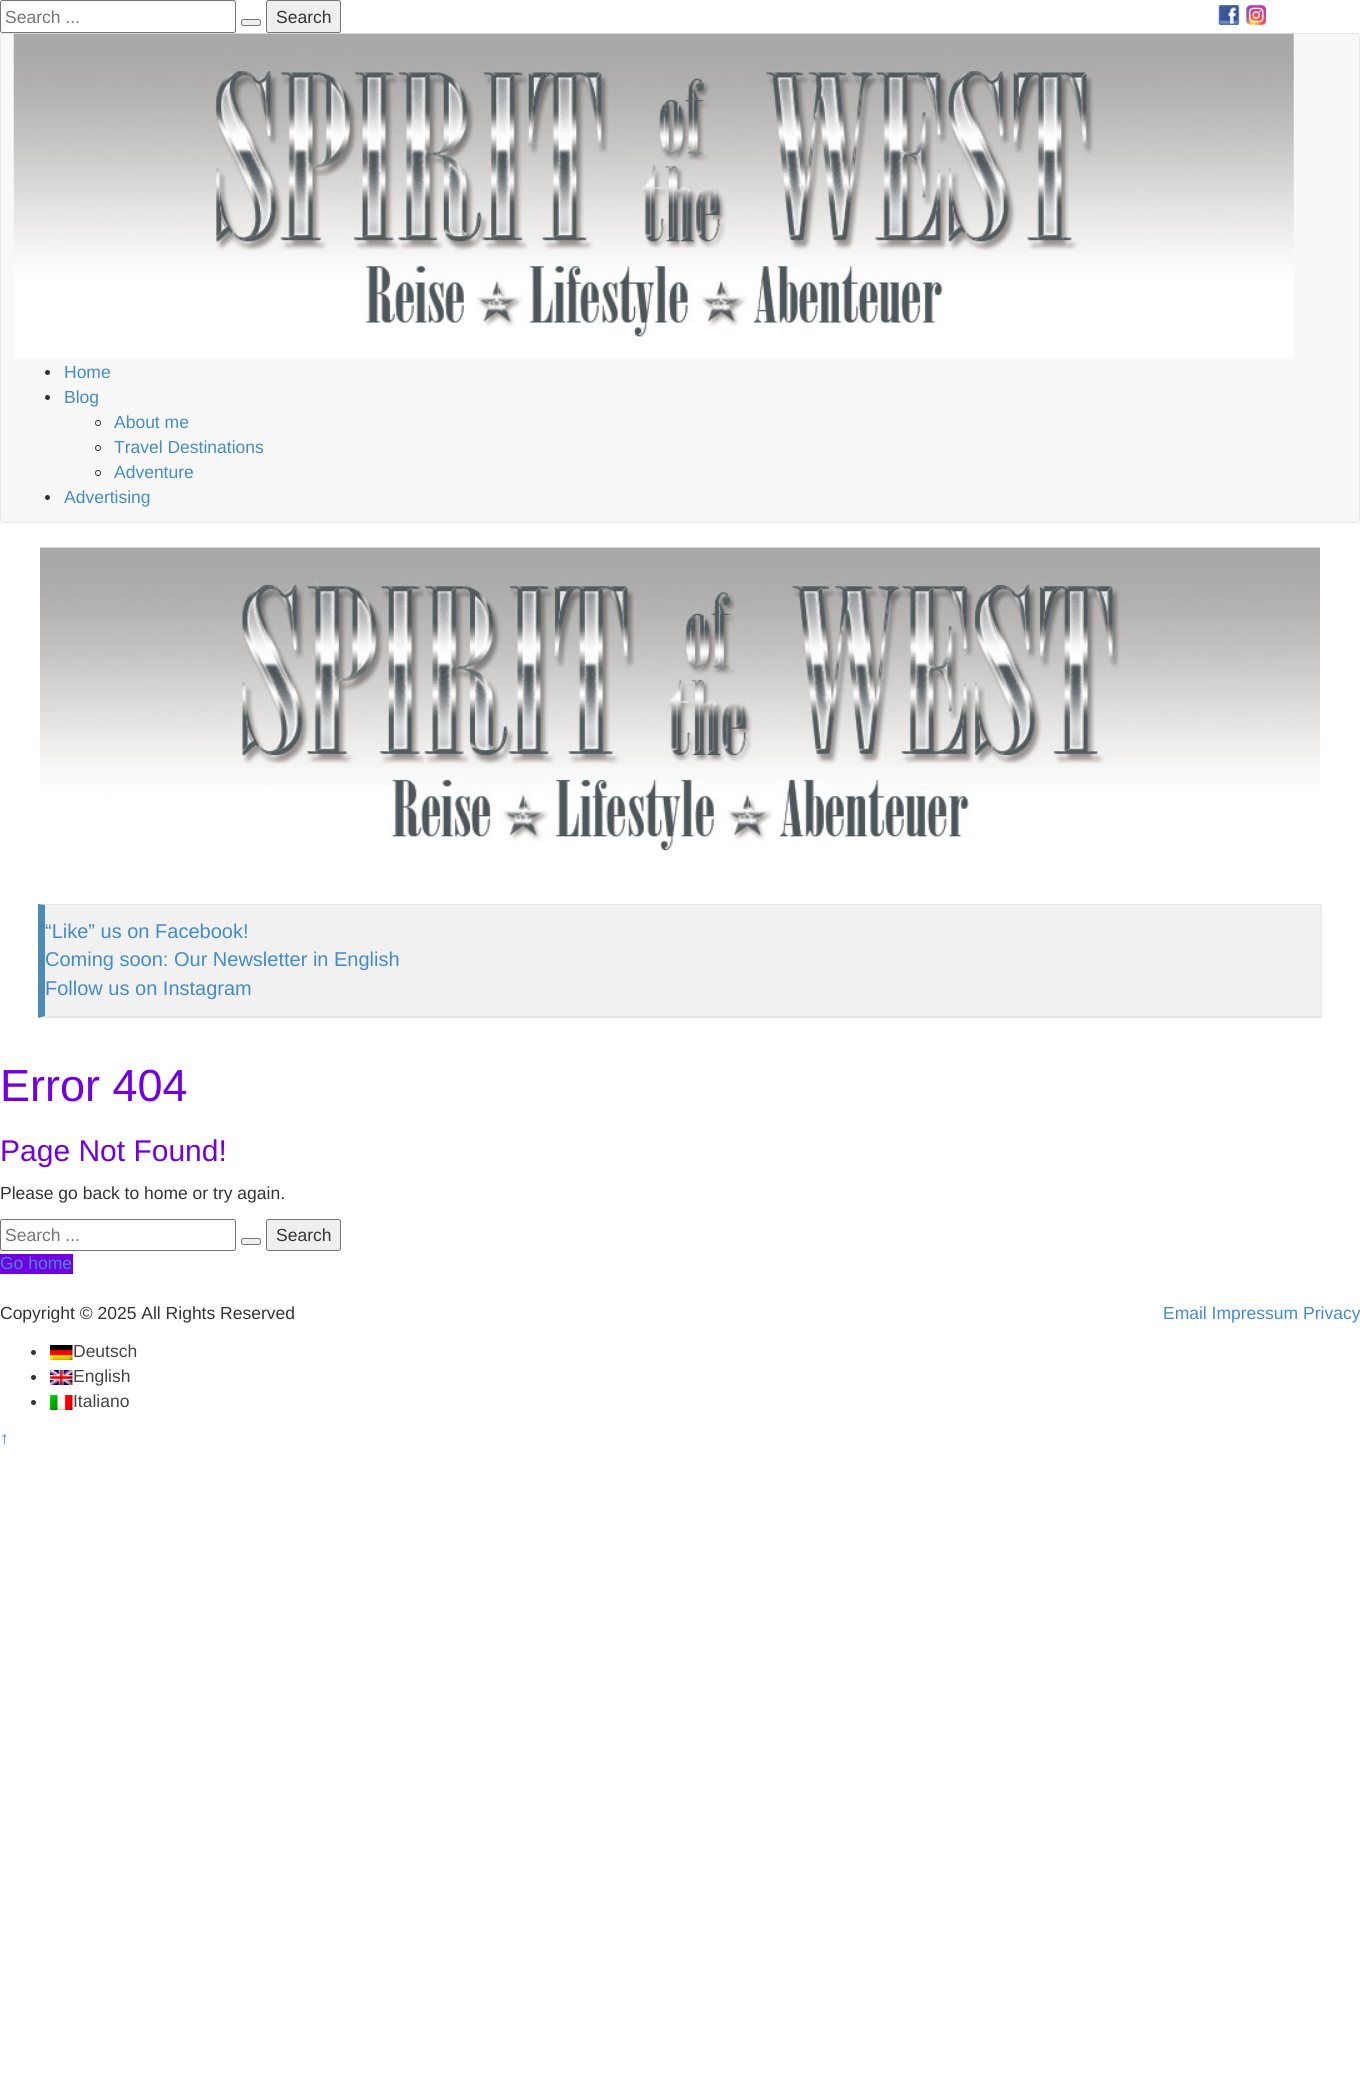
#include <cairo/cairo.h>
#include <math.h>
#include <stddef.h>

typedef struct { double x, y; const char *s; } line_t;
static cairo_t *cr;

static void rgb(unsigned color)
{
	cairo_set_source_rgb(cr, (color >> 16) / 255.0, (color >> 8 & 255) / 255.0, (color & 255) / 255.0);
}

static void rrect(double x, double y, double w, double h, double r)
{
	cairo_new_sub_path(cr);
	cairo_arc(cr, x + w - r, y + h - r, r, 0, M_PI / 2);
	cairo_arc(cr, x + r, y + h - r, r, M_PI / 2, M_PI);
	cairo_arc(cr, x + r, y + r, r, M_PI, 1.5 * M_PI);
	cairo_arc(cr, x + w - r, y + r, r, 1.5 * M_PI, 2 * M_PI);
	cairo_close_path(cr);
}

static void image(const char *path, double x, double y, double w, double h)
{
	cairo_surface_t *image = cairo_image_surface_create_from_png(path);
	cairo_save(cr);
	cairo_set_source_surface(cr, image, x, y);
	cairo_rectangle(cr, x, y, w, h);
	cairo_fill(cr);
	cairo_restore(cr);
	cairo_surface_destroy(image);
}

int main(void) {
	cairo_surface_t *surface = cairo_image_surface_create(CAIRO_FORMAT_RGB24, 1360, 2084);
	cr = cairo_create(surface);
	cairo_font_options_t *options = cairo_font_options_create();
	cairo_font_options_set_hint_metrics(options, CAIRO_HINT_METRICS_OFF);
	cairo_font_options_set_hint_style(options, CAIRO_HINT_STYLE_NONE);
	cairo_set_font_options(cr, options);
	cairo_set_miter_limit(cr, 4);
	rgb(0xffffff);
	cairo_paint(cr);
	rrect(0.5, 0.5, 235, 32, 2);
	rgb(0x767676);
	cairo_set_line_width(cr, 1);
	cairo_stroke(cr);
	rgb(0xefefef);
	rrect(241.5, 19.5, 19, 6, 2);
	cairo_fill_preserve(cr);
	rgb(0x767676);
	cairo_stroke(cr);
	rgb(0xefefef);
	rrect(266.5, 0.5, 74, 32, 2);
	cairo_fill_preserve(cr);
	rgb(0x767676);
	cairo_stroke(cr);
	rgb(0xf8f8f8);
	rrect(0.5, 33.5, 1359, 489, 4.5);
	cairo_fill_preserve(cr);
	rgb(0xe7e7e7);
	cairo_stroke(cr);
	image("img/1.png", 13, 33, 1281, 326);
	rgb(0x333333);
	cairo_arc(cr, 47.5, 372.5, 2.5, 0, 2 * M_PI);
	cairo_fill(cr);
	cairo_arc(cr, 47.5, 397.5, 2.5, 0, 2 * M_PI);
	cairo_fill(cr);
	cairo_arc(cr, 98, 423, 2.5, 0, 2 * M_PI);
	cairo_stroke(cr);
	cairo_arc(cr, 98, 448, 2.5, 0, 2 * M_PI);
	cairo_stroke(cr);
	cairo_arc(cr, 98, 473, 2.5, 0, 2 * M_PI);
	cairo_stroke(cr);
	cairo_arc(cr, 47.5, 497.5, 2.5, 0, 2 * M_PI);
	cairo_fill(cr);
	image("img/2.png", 1218, 5, 22, 20);
	image("img/3.png", 1246, 5, 20, 20);
	image("img/4.png", 40, 547, 1280, 310);
	rgb(0xf1f1f1);
	cairo_rectangle(cr, 45, 905, 1276, 111);
	cairo_fill(cr);
	rgb(0xe7e7e7);
	cairo_new_path(cr);
	cairo_move_to(cr, 38, 904);
	cairo_line_to(cr, 1322, 904);
	cairo_line_to(cr, 1321, 905);
	cairo_line_to(cr, 45, 905);
	cairo_close_path(cr);
	cairo_fill(cr);
	cairo_rectangle(cr, 1321, 904, 1, 114);
	cairo_fill(cr);
	cairo_new_path(cr);
	cairo_move_to(cr, 1322, 1018);
	cairo_line_to(cr, 38, 1018);
	cairo_line_to(cr, 45, 1016);
	cairo_line_to(cr, 1321, 1016);
	cairo_close_path(cr);
	cairo_fill(cr);
	rgb(0x4c8bb6);
	cairo_new_path(cr);
	cairo_move_to(cr, 38, 1018);
	cairo_line_to(cr, 38, 904);
	cairo_line_to(cr, 45, 905);
	cairo_line_to(cr, 45, 1016);
	cairo_close_path(cr);
	cairo_fill(cr);
	rrect(0.5, 1219.5, 235, 31, 2);
	rgb(0x767676);
	cairo_stroke(cr);
	rgb(0xefefef);
	rrect(241.5, 1238.5, 19, 6, 2);
	cairo_fill_preserve(cr);
	rgb(0x767676);
	cairo_stroke(cr);
	rgb(0xefefef);
	rrect(266.5, 1219.5, 74, 31, 2);
	cairo_fill_preserve(cr);
	rgb(0x767676);
	cairo_stroke(cr);
	rgb(0x7100e2);
	cairo_rectangle(cr, 0, 1254, 73, 20);
	cairo_fill(cr);
	rgb(0x333333);
	cairo_arc(cr, 33.5, 1352.5, 2.5, 0, 2 * M_PI);
	cairo_fill(cr);
	image("img/5.png", 50, 1345, 23, 15);
	cairo_arc(cr, 33.5, 1377.5, 2.5, 0, 2 * M_PI);
	cairo_fill(cr);
	image("img/6.png", 50, 1370, 23, 15);
	cairo_arc(cr, 33.5, 1402.5, 2.5, 0, 2 * M_PI);
	cairo_fill(cr);
	image("img/7.png", 50, 1395, 23, 15);
	cairo_select_font_face(cr, "Liberation Sans", CAIRO_FONT_SLANT_NORMAL, CAIRO_FONT_WEIGHT_NORMAL);
	cairo_set_font_size(cr, 17.5);
	rgb(0x757575);
	cairo_move_to(cr, 5, 23);
	cairo_show_text(cr, "Search ...");
	rgb(0x333333);
	cairo_move_to(cr, 276, 23);
	cairo_show_text(cr, "Search");
	rgb(0x428bca);
	{
		static const line_t items[] = {
			{64, 378, "Home"},
			{64, 403, "Blog"},
			{114, 428, "About me"},
			{114, 453, "Travel Destinations"},
			{114, 478, "Adventure"},
			{64, 503, "Advertising"},
		};
		for (size_t i = 0; i < sizeof items / sizeof *items; i++) {
			cairo_move_to(cr, items[i].x, items[i].y);
			cairo_show_text(cr, items[i].s);
		}
	}
	cairo_set_font_size(cr, 20);
	{
		static const line_t items[] = {
			{45, 938, "“Like” us on Facebook!"},
			{45, 966, "Coming soon: Our Newsletter in English"},
			{45, 995, "Follow us on Instagram"},
		};
		for (size_t i = 0; i < sizeof items / sizeof *items; i++) {
			cairo_move_to(cr, items[i].x, items[i].y);
			cairo_show_text(cr, items[i].s);
		}
	}
	cairo_set_font_size(cr, 45);
	rgb(0x7100e2);
	cairo_move_to(cr, 0, 1101);
	cairo_show_text(cr, "Error 404");
	cairo_set_font_size(cr, 30);
	cairo_move_to(cr, 0, 1161);
	cairo_show_text(cr, "Page Not Found!");
	cairo_set_font_size(cr, 17.5);
	rgb(0x333333);
	cairo_move_to(cr, 0, 1199);
	cairo_show_text(cr, "Please go back to home or try again.");
	rgb(0x757575);
	cairo_move_to(cr, 5, 1241);
	cairo_show_text(cr, "Search ...");
	rgb(0x333333);
	cairo_move_to(cr, 276, 1241);
	cairo_show_text(cr, "Search");
	rgb(0x428bca);
	cairo_move_to(cr, 0, 1269);
	cairo_show_text(cr, "Go home");
	rgb(0x333333);
	cairo_move_to(cr, 0, 1319);
	cairo_show_text(cr, "Copyright © 2025 All Rights Reserved");
	rgb(0x428bca);
	cairo_move_to(cr, 1163, 1319);
	cairo_show_text(cr, "Email Impressum Privacy");
	rgb(0x444444);
	{
		static const line_t items[] = {
			{73, 1357, "Deutsch"},
			{73, 1382, "English"},
			{73, 1407, "Italiano"},
		};
		for (size_t i = 0; i < sizeof items / sizeof *items; i++) {
			cairo_move_to(cr, items[i].x, items[i].y);
			cairo_show_text(cr, items[i].s);
		}
	}
	cairo_select_font_face(cr, "Liberation Sans", CAIRO_FONT_SLANT_NORMAL, CAIRO_FONT_WEIGHT_BOLD);
	rgb(0x428bca);
	cairo_move_to(cr, 0, 1444);
	cairo_show_text(cr, "↑");
	cairo_surface_write_to_png(surface, "page.png");
	cairo_font_options_destroy(options);
	cairo_destroy(cr);
	cairo_surface_destroy(surface);
	return 0;
}
